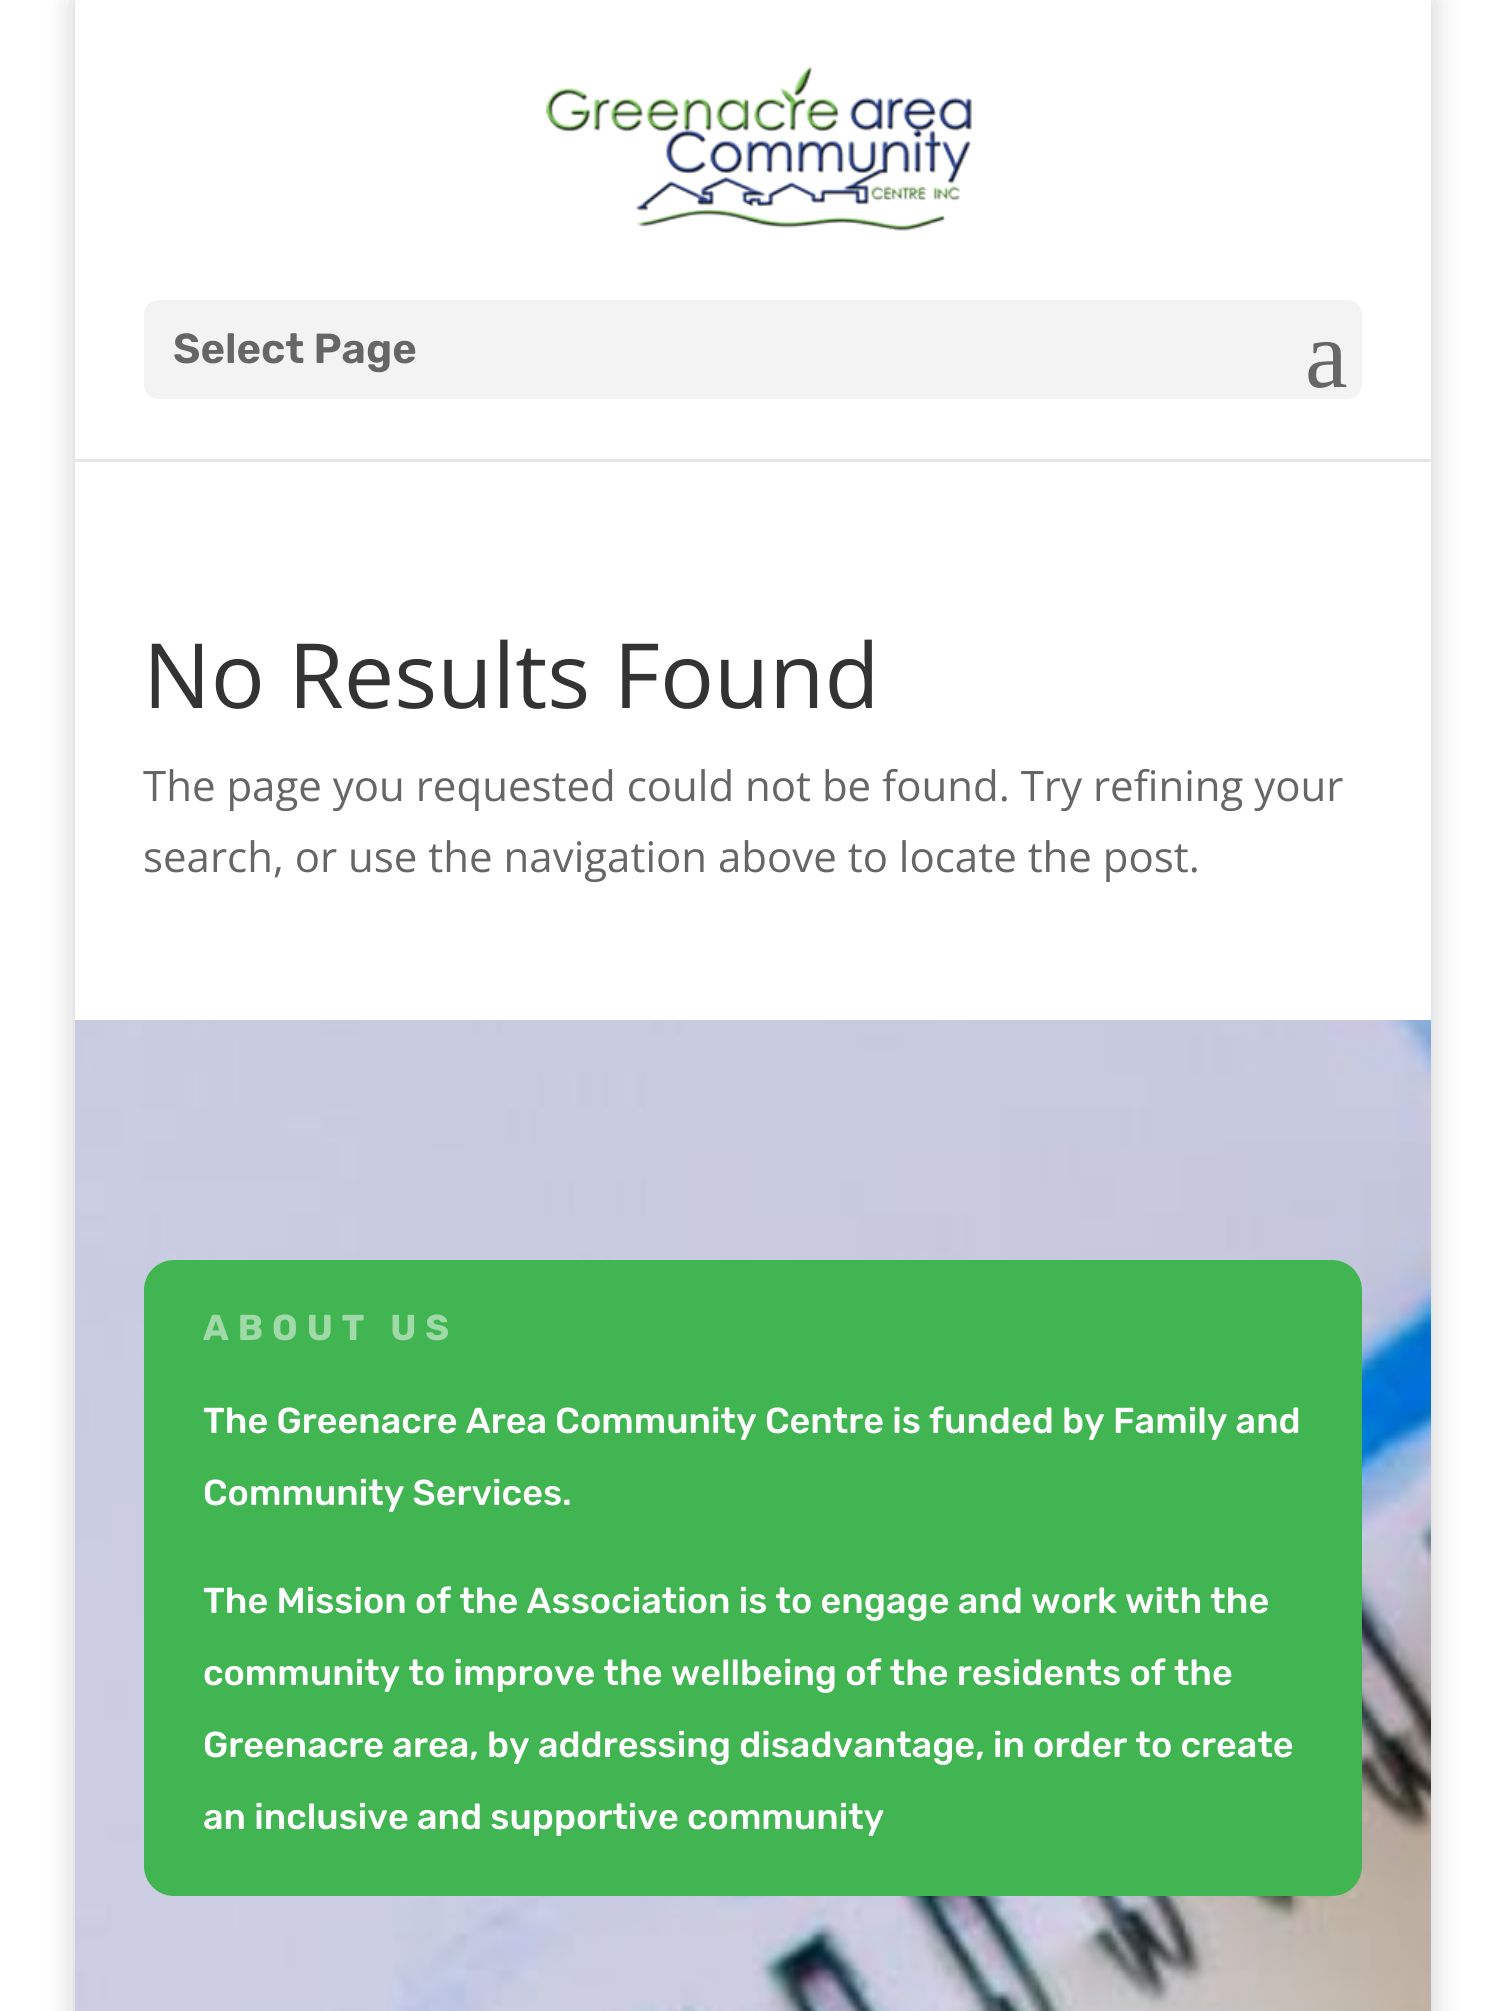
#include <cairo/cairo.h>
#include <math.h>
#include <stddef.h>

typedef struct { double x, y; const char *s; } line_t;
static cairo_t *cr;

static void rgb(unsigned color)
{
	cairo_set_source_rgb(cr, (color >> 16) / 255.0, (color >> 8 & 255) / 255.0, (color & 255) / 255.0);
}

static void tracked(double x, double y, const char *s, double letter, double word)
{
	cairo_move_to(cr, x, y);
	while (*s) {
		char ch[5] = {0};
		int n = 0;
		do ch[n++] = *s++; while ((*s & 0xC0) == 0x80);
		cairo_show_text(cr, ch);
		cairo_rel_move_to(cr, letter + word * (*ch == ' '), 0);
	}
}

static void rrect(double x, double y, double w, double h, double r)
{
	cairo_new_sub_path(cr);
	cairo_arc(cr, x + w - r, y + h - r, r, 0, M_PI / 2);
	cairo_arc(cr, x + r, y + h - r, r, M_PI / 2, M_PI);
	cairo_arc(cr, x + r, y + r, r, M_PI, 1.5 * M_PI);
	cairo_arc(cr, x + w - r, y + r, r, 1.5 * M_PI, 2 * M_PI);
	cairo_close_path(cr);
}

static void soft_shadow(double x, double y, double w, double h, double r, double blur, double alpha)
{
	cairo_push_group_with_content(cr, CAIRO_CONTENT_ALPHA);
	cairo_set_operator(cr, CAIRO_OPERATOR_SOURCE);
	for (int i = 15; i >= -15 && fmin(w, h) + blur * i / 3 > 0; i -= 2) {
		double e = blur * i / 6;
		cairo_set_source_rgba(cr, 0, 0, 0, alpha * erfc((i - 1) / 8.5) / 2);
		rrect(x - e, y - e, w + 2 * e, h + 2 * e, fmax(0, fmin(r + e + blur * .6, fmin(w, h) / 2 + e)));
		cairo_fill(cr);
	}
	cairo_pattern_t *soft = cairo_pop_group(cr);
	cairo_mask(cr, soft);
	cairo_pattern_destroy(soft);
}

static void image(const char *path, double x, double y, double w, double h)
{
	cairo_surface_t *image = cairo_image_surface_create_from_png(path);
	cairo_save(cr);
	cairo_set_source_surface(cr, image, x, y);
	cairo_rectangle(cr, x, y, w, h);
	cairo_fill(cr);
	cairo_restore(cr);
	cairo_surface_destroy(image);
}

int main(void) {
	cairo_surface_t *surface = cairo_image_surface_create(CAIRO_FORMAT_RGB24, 1506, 2011);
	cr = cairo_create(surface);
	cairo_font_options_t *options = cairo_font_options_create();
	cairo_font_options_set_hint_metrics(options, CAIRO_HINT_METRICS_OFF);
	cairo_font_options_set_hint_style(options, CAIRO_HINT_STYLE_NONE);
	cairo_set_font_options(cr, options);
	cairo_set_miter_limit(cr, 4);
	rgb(0xffffff);
	cairo_paint(cr);
	cairo_save(cr);
	cairo_set_fill_rule(cr, CAIRO_FILL_RULE_EVEN_ODD);
	cairo_new_path(cr);
	cairo_move_to(cr, 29, 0);
	cairo_line_to(cr, 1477, 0);
	cairo_line_to(cr, 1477, 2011);
	cairo_line_to(cr, 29, 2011);
	cairo_close_path(cr);
	cairo_move_to(cr, 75, 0);
	cairo_line_to(cr, 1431, 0);
	cairo_line_to(cr, 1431, 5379);
	cairo_line_to(cr, 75, 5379);
	cairo_close_path(cr);
	cairo_clip(cr);
	rgb(0x000000);
	soft_shadow(75, 0, 1356, 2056, 0, 15, 0.2);
	cairo_restore(cr);
	rgb(0xe6e6e6);
	cairo_rectangle(cr, 75, 459, 1356, 3);
	cairo_fill(cr);
	image("img/1.png", 546, 66, 426, 165);
	rgb(0xf3f3f3);
	rrect(144, 300, 1218, 99, 15);
	cairo_fill(cr);
	image("img/2.png", 75, 1020, 1356, 991);
	rgb(0x40b551);
	rrect(144, 1260, 1218, 636, 30);
	cairo_fill(cr);
	cairo_select_font_face(cr, "Rubik SemiBold", CAIRO_FONT_SLANT_NORMAL, CAIRO_FONT_WEIGHT_NORMAL);
	cairo_set_font_size(cr, 42);
	rgb(0x666666);
	cairo_move_to(cr, 173, 363);
	cairo_show_text(cr, "Select Page");
	cairo_select_font_face(cr, "Liberation Serif", CAIRO_FONT_SLANT_NORMAL, CAIRO_FONT_WEIGHT_NORMAL);
	cairo_set_font_size(cr, 96);
	cairo_move_to(cr, 1305, 387);
	cairo_show_text(cr, "a");
	cairo_select_font_face(cr, "Open Sans", CAIRO_FONT_SLANT_NORMAL, CAIRO_FONT_WEIGHT_NORMAL);
	cairo_set_font_size(cr, 90);
	rgb(0x333333);
	cairo_move_to(cr, 143, 708);
	cairo_show_text(cr, "No Results Found");
	cairo_set_font_size(cr, 42);
	rgb(0x666666);
	cairo_move_to(cr, 143, 801);
	cairo_show_text(cr, "The page you requested could not be found. Try refining your");
	cairo_move_to(cr, 143, 872);
	cairo_show_text(cr, "search, or use the navigation above to locate the post.");
	cairo_select_font_face(cr, "Rubik Light", CAIRO_FONT_SLANT_NORMAL, CAIRO_FONT_WEIGHT_NORMAL);
	cairo_set_font_size(cr, 36);
	rgb(0xa0daa8);
	tracked(203, 1340, "ABOUT US", 9, 0);
	cairo_select_font_face(cr, "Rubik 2 Light", CAIRO_FONT_SLANT_NORMAL, CAIRO_FONT_WEIGHT_NORMAL);
	rgb(0xffffff);
	{
		static const line_t items[] = {
			{203, 1433, "The Greenacre Area Community Centre is funded by Family and"},
			{203, 1505, "Community Services."},
			{203, 1613, "The Mission of the Association is to engage and work with the"},
			{203, 1685, "community to improve the wellbeing of the residents of the"},
			{203, 1757, "Greenacre area, by addressing disadvantage, in order to create"},
			{203, 1829, "an inclusive and supportive community"},
		};
		for (size_t i = 0; i < sizeof items / sizeof *items; i++) {
			cairo_move_to(cr, items[i].x, items[i].y);
			cairo_show_text(cr, items[i].s);
		}
	}
	cairo_surface_write_to_png(surface, "page.png");
	cairo_font_options_destroy(options);
	cairo_destroy(cr);
	cairo_surface_destroy(surface);
	return 0;
}
